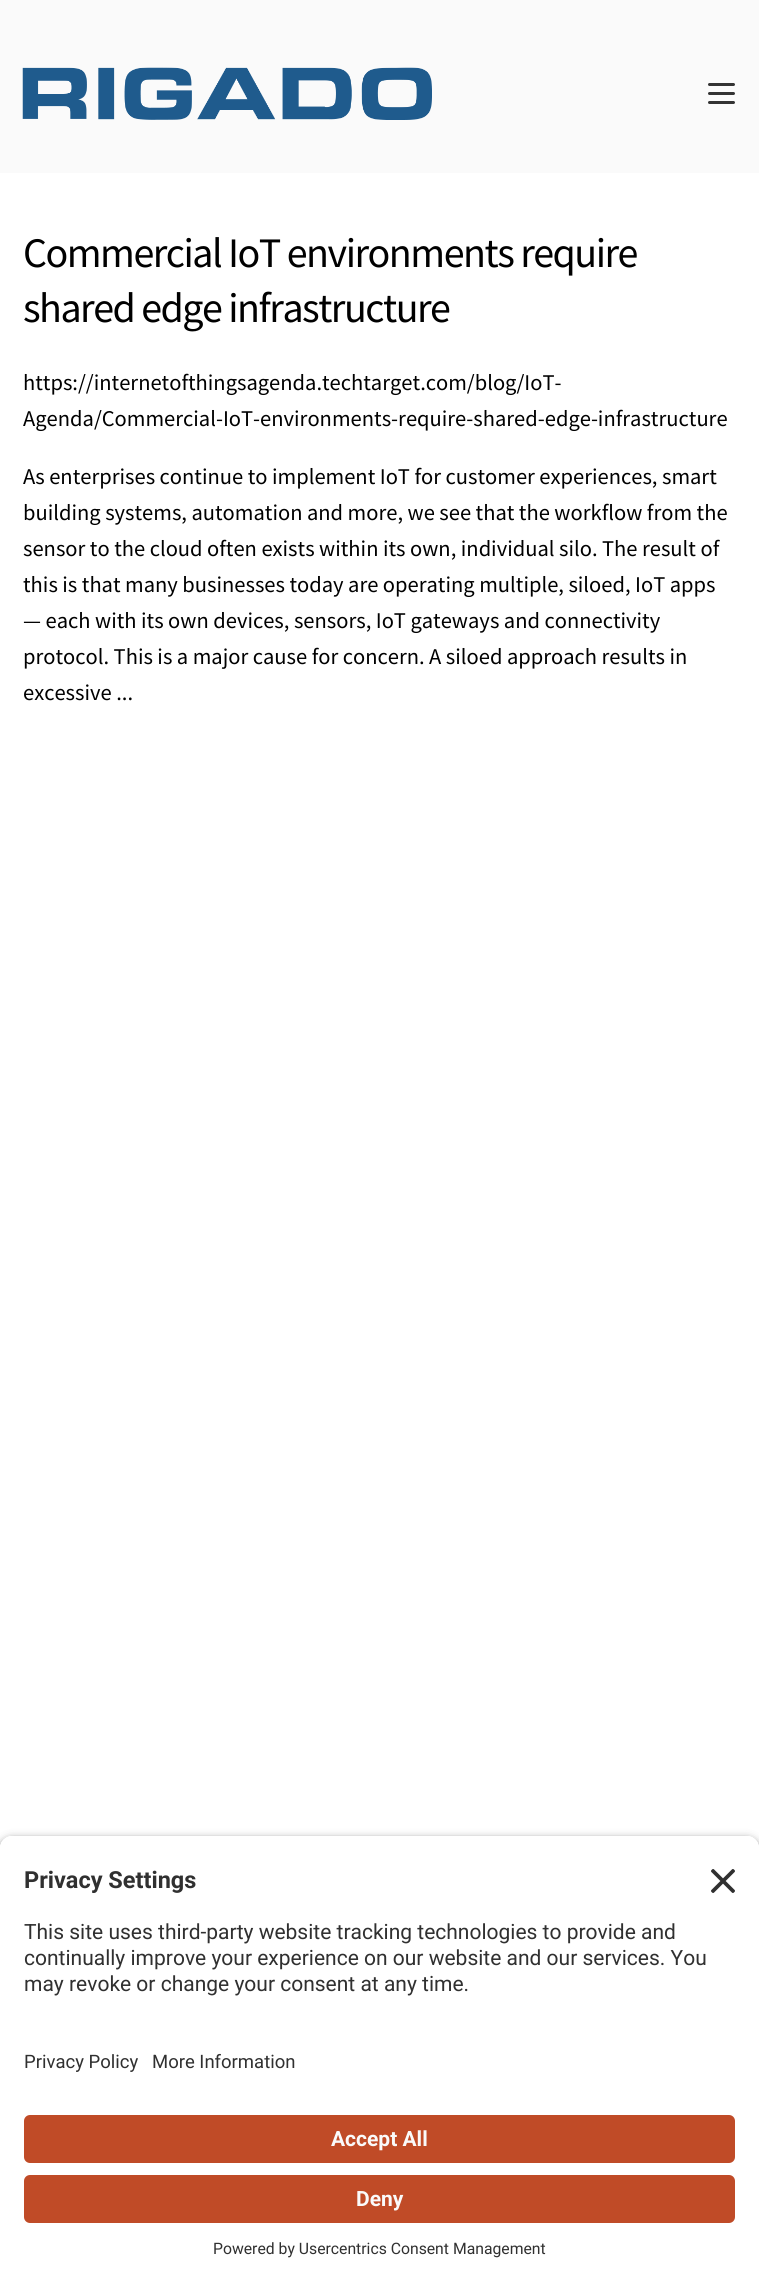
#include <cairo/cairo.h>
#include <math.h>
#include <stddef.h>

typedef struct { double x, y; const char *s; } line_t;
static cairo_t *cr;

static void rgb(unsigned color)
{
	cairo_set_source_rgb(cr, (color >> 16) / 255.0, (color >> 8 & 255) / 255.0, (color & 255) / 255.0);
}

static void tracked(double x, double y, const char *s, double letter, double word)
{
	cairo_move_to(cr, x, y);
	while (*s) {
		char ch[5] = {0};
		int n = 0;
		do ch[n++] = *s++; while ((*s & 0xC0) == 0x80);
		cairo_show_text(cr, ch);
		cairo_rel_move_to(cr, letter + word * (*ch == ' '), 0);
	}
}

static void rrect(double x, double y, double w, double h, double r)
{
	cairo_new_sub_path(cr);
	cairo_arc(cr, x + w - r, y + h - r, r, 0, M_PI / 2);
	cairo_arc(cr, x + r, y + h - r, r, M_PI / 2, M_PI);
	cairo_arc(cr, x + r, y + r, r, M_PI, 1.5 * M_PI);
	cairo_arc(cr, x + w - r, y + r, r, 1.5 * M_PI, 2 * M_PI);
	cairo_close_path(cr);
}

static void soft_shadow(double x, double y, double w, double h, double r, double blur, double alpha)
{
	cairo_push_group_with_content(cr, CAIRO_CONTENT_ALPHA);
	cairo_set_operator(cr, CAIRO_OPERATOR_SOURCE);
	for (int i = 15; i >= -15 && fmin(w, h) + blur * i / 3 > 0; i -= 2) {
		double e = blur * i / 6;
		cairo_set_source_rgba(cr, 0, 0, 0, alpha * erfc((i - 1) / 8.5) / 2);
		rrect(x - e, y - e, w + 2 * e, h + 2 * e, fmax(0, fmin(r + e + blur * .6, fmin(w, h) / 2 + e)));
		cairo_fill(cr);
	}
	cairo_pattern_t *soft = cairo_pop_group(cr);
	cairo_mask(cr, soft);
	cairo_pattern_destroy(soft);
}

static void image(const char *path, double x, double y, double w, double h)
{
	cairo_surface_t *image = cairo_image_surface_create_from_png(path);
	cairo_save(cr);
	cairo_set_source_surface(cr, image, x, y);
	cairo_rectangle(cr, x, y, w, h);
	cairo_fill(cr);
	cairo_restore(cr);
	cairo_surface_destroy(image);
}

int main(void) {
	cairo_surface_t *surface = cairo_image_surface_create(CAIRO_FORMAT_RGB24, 759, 2282);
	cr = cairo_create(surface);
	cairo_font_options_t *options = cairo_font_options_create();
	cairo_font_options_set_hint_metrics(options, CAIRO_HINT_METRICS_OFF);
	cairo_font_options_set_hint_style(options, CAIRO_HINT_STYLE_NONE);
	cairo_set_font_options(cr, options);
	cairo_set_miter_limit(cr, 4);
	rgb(0xffffff);
	cairo_paint(cr);
	rgb(0xfafafa);
	cairo_rectangle(cr, 0, 0, 759, 173);
	cairo_fill(cr);
	image("img/1.png", 22, 67, 410, 53);
	rgb(0x333333);
	rrect(708, 83, 27, 3, 1.5);
	cairo_fill(cr);
	rrect(708, 92, 27, 3, 1.5);
	cairo_fill(cr);
	rrect(708, 101, 27, 3, 1.5);
	cairo_fill(cr);
	cairo_save(cr);
	cairo_set_fill_rule(cr, CAIRO_FILL_RULE_EVEN_ODD);
	cairo_new_path(cr);
	cairo_move_to(cr, 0, 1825);
	cairo_line_to(cr, 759, 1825);
	cairo_line_to(cr, 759, 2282);
	cairo_line_to(cr, 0, 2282);
	cairo_close_path(cr);
	cairo_move_to(cr, 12, 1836);
	cairo_line_to(cr, 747, 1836);
	cairo_curve_to(cr, 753.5, 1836, 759, 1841.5, 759, 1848);
	cairo_line_to(cr, 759, 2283);
	cairo_line_to(cr, 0, 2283);
	cairo_line_to(cr, 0, 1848);
	cairo_curve_to(cr, 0, 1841.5, 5.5, 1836, 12, 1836);
	cairo_close_path(cr);
	cairo_clip(cr);
	rgb(0x000000);
	soft_shadow(0, 1841, 759, 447, 12, 5, 0.8);
	cairo_restore(cr);
	rgb(0xffffff);
	cairo_new_path(cr);
	cairo_move_to(cr, 12, 1836);
	cairo_line_to(cr, 747, 1836);
	cairo_curve_to(cr, 753.5, 1836, 759, 1841.5, 759, 1848);
	cairo_line_to(cr, 759, 2028);
	cairo_line_to(cr, 0, 2028);
	cairo_line_to(cr, 0, 1848);
	cairo_curve_to(cr, 0, 1841.5, 5.5, 1836, 12, 1836);
	cairo_close_path(cr);
	cairo_fill(cr);
	image("img/2.png", 711, 1869, 24, 24);
	rgb(0xc04b27);
	rrect(24, 2115, 711, 48, 6);
	cairo_fill(cr);
	rrect(24, 2175, 711, 48, 6);
	cairo_fill(cr);
	cairo_select_font_face(cr, "Source Sans Pro", CAIRO_FONT_SLANT_NORMAL, CAIRO_FONT_WEIGHT_NORMAL);
	cairo_set_font_size(cr, 42);
	rgb(0x000000);
	tracked(23, 267, "Commercial IoT environments require", -1.5, 0);
	tracked(23, 322, "shared edge infrastructure", -1.5, 0);
	cairo_set_font_size(cr, 22.5);
	{
		static const line_t items[] = {
			{23, 390, "https://internetofthingsagenda.techtarget.com/blog/IoT-"},
			{23, 426, "Agenda/Commercial-IoT-environments-require-shared-edge-infrastructure"},
			{23, 484, "As enterprises continue to implement IoT for customer experiences, smart"},
			{23, 520, "building systems, automation and more, we see that the workflow from the"},
			{23, 556, "sensor to the cloud often exists within its own, individual silo. The result of"},
			{23, 592, "this is that many businesses today are operating multiple, siloed, IoT apps"},
			{23, 628, "— each with its own devices, sensors, IoT gateways and connectivity"},
			{23, 664, "protocol. This is a major cause for concern. A siloed approach results in"},
			{23, 700, "excessive ..."},
		};
		for (size_t i = 0; i < sizeof items / sizeof *items; i++) {
			cairo_move_to(cr, items[i].x, items[i].y);
			cairo_show_text(cr, items[i].s);
		}
	}
	cairo_select_font_face(cr, "Roboto", CAIRO_FONT_SLANT_NORMAL, CAIRO_FONT_WEIGHT_BOLD);
	cairo_set_font_size(cr, 23.5);
	rgb(0x303030);
	cairo_move_to(cr, 24, 1888);
	cairo_show_text(cr, "Privacy Settings");
	cairo_select_font_face(cr, "Roboto", CAIRO_FONT_SLANT_NORMAL, CAIRO_FONT_WEIGHT_NORMAL);
	cairo_set_font_size(cr, 21);
	{
		static const line_t items[] = {
			{24, 1939, "This site uses third-party website tracking technologies to provide and"},
			{24, 1965, "continually improve your experience on our website and our services. You"},
			{24, 1991, "may revoke or change your consent at any time."},
		};
		for (size_t i = 0; i < sizeof items / sizeof *items; i++) {
			cairo_move_to(cr, items[i].x, items[i].y);
			cairo_show_text(cr, items[i].s);
		}
	}
	cairo_set_font_size(cr, 18.5);
	cairo_move_to(cr, 24, 2068);
	cairo_show_text(cr, "Privacy Policy");
	cairo_move_to(cr, 152, 2068);
	cairo_show_text(cr, "More Information");
	cairo_select_font_face(cr, "Roboto", CAIRO_FONT_SLANT_NORMAL, CAIRO_FONT_WEIGHT_BOLD);
	cairo_set_font_size(cr, 21);
	rgb(0xfafafa);
	cairo_move_to(cr, 331, 2146);
	cairo_show_text(cr, "Accept All");
	cairo_move_to(cr, 356, 2206);
	cairo_show_text(cr, "Deny");
	cairo_select_font_face(cr, "Roboto", CAIRO_FONT_SLANT_NORMAL, CAIRO_FONT_WEIGHT_NORMAL);
	cairo_set_font_size(cr, 15.75);
	rgb(0x303030);
	cairo_move_to(cr, 213, 2254);
	cairo_show_text(cr, "Powered by Usercentrics Consent Management");
	cairo_surface_write_to_png(surface, "page.png");
	cairo_font_options_destroy(options);
	cairo_destroy(cr);
	cairo_surface_destroy(surface);
	return 0;
}
